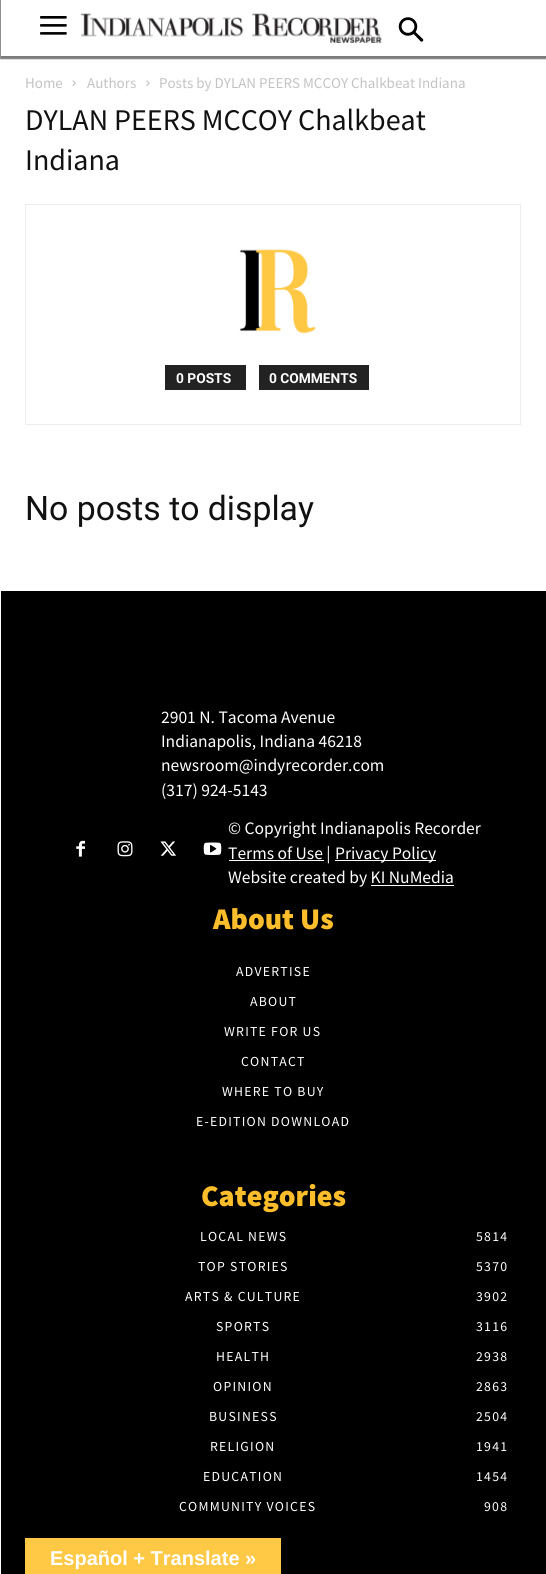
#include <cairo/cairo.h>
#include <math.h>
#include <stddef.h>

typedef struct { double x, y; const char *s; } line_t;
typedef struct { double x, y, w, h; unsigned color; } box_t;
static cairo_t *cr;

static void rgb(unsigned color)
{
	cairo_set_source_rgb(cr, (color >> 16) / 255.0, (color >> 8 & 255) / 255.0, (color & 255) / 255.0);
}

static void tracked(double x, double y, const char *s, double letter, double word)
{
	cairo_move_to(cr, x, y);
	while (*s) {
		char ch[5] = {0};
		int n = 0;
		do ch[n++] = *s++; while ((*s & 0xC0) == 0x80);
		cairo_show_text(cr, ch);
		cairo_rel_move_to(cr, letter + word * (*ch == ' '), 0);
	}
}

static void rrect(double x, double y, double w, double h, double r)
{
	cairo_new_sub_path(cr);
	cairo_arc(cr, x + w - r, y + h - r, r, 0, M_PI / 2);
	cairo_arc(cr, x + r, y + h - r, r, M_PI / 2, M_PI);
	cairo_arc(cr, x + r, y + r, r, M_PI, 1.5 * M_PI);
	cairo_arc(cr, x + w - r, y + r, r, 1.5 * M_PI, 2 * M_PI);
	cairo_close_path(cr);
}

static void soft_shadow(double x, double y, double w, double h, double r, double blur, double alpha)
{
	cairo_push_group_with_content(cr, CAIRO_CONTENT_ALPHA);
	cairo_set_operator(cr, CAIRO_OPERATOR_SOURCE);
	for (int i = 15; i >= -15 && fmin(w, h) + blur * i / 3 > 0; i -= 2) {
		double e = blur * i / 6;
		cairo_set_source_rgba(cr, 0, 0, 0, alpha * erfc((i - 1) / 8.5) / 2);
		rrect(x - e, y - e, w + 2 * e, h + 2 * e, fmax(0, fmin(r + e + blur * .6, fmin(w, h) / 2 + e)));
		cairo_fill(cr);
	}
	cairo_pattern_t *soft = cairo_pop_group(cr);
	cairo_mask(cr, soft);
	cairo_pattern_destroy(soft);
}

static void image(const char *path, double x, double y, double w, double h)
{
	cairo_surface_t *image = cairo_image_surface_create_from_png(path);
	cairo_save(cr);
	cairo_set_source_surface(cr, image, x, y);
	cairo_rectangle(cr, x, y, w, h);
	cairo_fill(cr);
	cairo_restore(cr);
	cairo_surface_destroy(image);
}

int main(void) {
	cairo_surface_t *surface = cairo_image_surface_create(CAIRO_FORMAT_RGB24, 546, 1574);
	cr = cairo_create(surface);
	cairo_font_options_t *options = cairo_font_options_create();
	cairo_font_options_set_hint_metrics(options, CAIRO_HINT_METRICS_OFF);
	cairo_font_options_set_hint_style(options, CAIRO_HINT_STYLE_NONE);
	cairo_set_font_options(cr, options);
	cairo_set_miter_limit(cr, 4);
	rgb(0xffffff);
	cairo_paint(cr);
	image("img/1.png", 40, 16, 27, 19);
	image("img/2.png", 81, 13, 301, 30);
	image("img/3.png", 398, 17, 26, 25);
	cairo_save(cr);
	cairo_set_fill_rule(cr, CAIRO_FILL_RULE_EVEN_ODD);
	cairo_new_path(cr);
	cairo_move_to(cr, 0, 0);
	cairo_line_to(cr, 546, 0);
	cairo_line_to(cr, 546, 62);
	cairo_line_to(cr, 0, 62);
	cairo_close_path(cr);
	cairo_move_to(cr, 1, -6);
	cairo_line_to(cr, 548, -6);
	cairo_line_to(cr, 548, 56);
	cairo_line_to(cr, 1, 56);
	cairo_close_path(cr);
	cairo_clip(cr);
	rgb(0x212121);
	soft_shadow(0, -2, 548, 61, 0, 0.5, 0.57);
	cairo_restore(cr);
	cairo_save(cr);
	cairo_rectangle(cr, 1, 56, 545, 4);
	cairo_clip(cr);
	rgb(0x000000);
	soft_shadow(1, -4, 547, 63, 0, 2.5, 0.06);
	cairo_restore(cr);
	image("img/4.png", 72, 80, 4, 6);
	image("img/5.png", 146, 80, 4, 6);
	cairo_rectangle(cr, 25.5, 204.5, 495, 220);
	rgb(0xededed);
	cairo_set_line_width(cr, 1);
	cairo_stroke(cr);
	image("img/6.png", 239, 249, 77, 85);
	{
		static const box_t items[] = {
			{165, 365, 81, 25, 0x222222},
			{259, 365, 110, 25, 0x222222},
			{1, 591, 545, 983, 0x000000},
		};
		for (size_t i = 0; i < sizeof items / sizeof *items; i++) {
			rgb(items[i].color);
			cairo_rectangle(cr, items[i].x, items[i].y, items[i].w, items[i].h);
			cairo_fill(cr);
		}
	}
	image("img/7.png", 76, 840, 9, 17);
	image("img/8.png", 117, 841, 16, 16);
	image("img/9.png", 160, 841, 16, 15);
	image("img/10.png", 203, 842, 19, 13);
	{
		static const box_t items[] = {
			{229, 860, 95, 1, 0xffffff},
			{335, 860, 101, 1, 0xffffff},
			{371, 885, 83, 1, 0xffffff},
			{25, 1538, 256, 36, 0xffc845},
		};
		for (size_t i = 0; i < sizeof items / sizeof *items; i++) {
			rgb(items[i].color);
			cairo_rectangle(cr, items[i].x, items[i].y, items[i].w, items[i].h);
			cairo_fill(cr);
		}
	}
	cairo_select_font_face(cr, "Source Sans Pro", CAIRO_FONT_SLANT_NORMAL, CAIRO_FONT_WEIGHT_NORMAL);
	cairo_set_font_size(cr, 15);
	rgb(0xc3c3c3);
	{
		static const line_t items[] = {
			{25, 88, "Home"},
			{87, 88, "Authors"},
			{159, 88, "Posts by DYLAN PEERS MCCOY Chalkbeat Indiana"},
		};
		for (size_t i = 0; i < sizeof items / sizeof *items; i++) {
			cairo_move_to(cr, items[i].x, items[i].y);
			cairo_show_text(cr, items[i].s);
		}
	}
	cairo_set_font_size(cr, 30);
	rgb(0x111111);
	cairo_move_to(cr, 25, 130);
	cairo_show_text(cr, "DYLAN PEERS MCCOY Chalkbeat");
	cairo_move_to(cr, 25, 170);
	cairo_show_text(cr, "Indiana");
	cairo_select_font_face(cr, "Roboto", CAIRO_FONT_SLANT_NORMAL, CAIRO_FONT_WEIGHT_BOLD);
	cairo_set_font_size(cr, 13.75);
	rgb(0xffffff);
	cairo_move_to(cr, 176, 383);
	cairo_show_text(cr, "0 POSTS");
	cairo_move_to(cr, 269, 383);
	cairo_show_text(cr, "0 COMMENTS");
	cairo_select_font_face(cr, "Roboto", CAIRO_FONT_SLANT_NORMAL, CAIRO_FONT_WEIGHT_NORMAL);
	cairo_set_font_size(cr, 33.75);
	rgb(0x111111);
	cairo_move_to(cr, 25, 520);
	cairo_show_text(cr, "No posts to display");
	cairo_select_font_face(cr, "Source Sans Pro", CAIRO_FONT_SLANT_NORMAL, CAIRO_FONT_WEIGHT_NORMAL);
	cairo_set_font_size(cr, 17.5);
	rgb(0xffffff);
	{
		static const line_t items[] = {
			{161, 723, "2901 N. Tacoma Avenue"},
			{161, 747, "Indianapolis, Indiana 46218"},
			{161, 771, "newsroom@indyrecorder.com"},
			{161, 796, "(317) 924-5143"},
			{228, 834, "© Copyright Indianapolis Recorder"},
			{228, 859, "Terms of Use |"},
			{335, 859, "Privacy Policy"},
			{228, 883, "Website created by KI NuMedia"},
		};
		for (size_t i = 0; i < sizeof items / sizeof *items; i++) {
			cairo_move_to(cr, items[i].x, items[i].y);
			cairo_show_text(cr, items[i].s);
		}
	}
	cairo_select_font_face(cr, "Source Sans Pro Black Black", CAIRO_FONT_SLANT_NORMAL, CAIRO_FONT_WEIGHT_NORMAL);
	cairo_set_font_size(cr, 30);
	rgb(0xfebe2b);
	cairo_move_to(cr, 213, 929);
	cairo_show_text(cr, "About Us");
	cairo_select_font_face(cr, "Source Sans Pro", CAIRO_FONT_SLANT_NORMAL, CAIRO_FONT_WEIGHT_NORMAL);
	cairo_set_font_size(cr, 13.75);
	rgb(0xffffff);
	{
		static const line_t items[] = {
			{236, 976, "ADVERTISE"},
			{250, 1006, "ABOUT"},
			{224, 1036, "WRITE FOR US"},
			{241, 1066, "CONTACT"},
			{222, 1096, "WHERE TO BUY"},
			{196, 1126, "E-EDITION DOWNLOAD"},
		};
		for (size_t i = 0; i < sizeof items / sizeof *items; i++) {
			tracked(items[i].x, items[i].y, items[i].s, 1.25, 0);
		}
	}
	cairo_select_font_face(cr, "Source Sans Pro Black Black", CAIRO_FONT_SLANT_NORMAL, CAIRO_FONT_WEIGHT_NORMAL);
	cairo_set_font_size(cr, 30);
	rgb(0xfebe2b);
	cairo_move_to(cr, 201, 1206);
	cairo_show_text(cr, "Categories");
	cairo_select_font_face(cr, "Source Sans Pro", CAIRO_FONT_SLANT_NORMAL, CAIRO_FONT_WEIGHT_NORMAL);
	cairo_set_font_size(cr, 13.75);
	rgb(0xffffff);
	{
		static const line_t items[] = {
			{200, 1241, "LOCAL NEWS"},
			{476, 1241, "5814"},
			{198, 1271, "TOP STORIES"},
			{476, 1271, "5370"},
			{185, 1301, "ARTS & CULTURE"},
			{476, 1301, "3902"},
			{216, 1331, "SPORTS"},
			{476, 1331, "3116"},
			{216, 1361, "HEALTH"},
			{476, 1361, "2938"},
			{213, 1391, "OPINION"},
			{476, 1391, "2863"},
			{209, 1421, "BUSINESS"},
			{476, 1421, "2504"},
			{210, 1451, "RELIGION"},
			{476, 1451, "1941"},
			{203, 1481, "EDUCATION"},
			{476, 1481, "1454"},
			{179, 1511, "COMMUNITY VOICES"},
			{484, 1511, "908"},
		};
		for (size_t i = 0; i < sizeof items / sizeof *items; i++) {
			tracked(items[i].x, items[i].y, items[i].s, 1.25, 0);
		}
	}
	cairo_select_font_face(cr, "Liberation Sans", CAIRO_FONT_SLANT_NORMAL, CAIRO_FONT_WEIGHT_BOLD);
	cairo_set_font_size(cr, 20);
	cairo_move_to(cr, 50, 1565);
	cairo_show_text(cr, "Español + Translate »");
	cairo_surface_write_to_png(surface, "page.png");
	cairo_font_options_destroy(options);
	cairo_destroy(cr);
	cairo_surface_destroy(surface);
	return 0;
}
